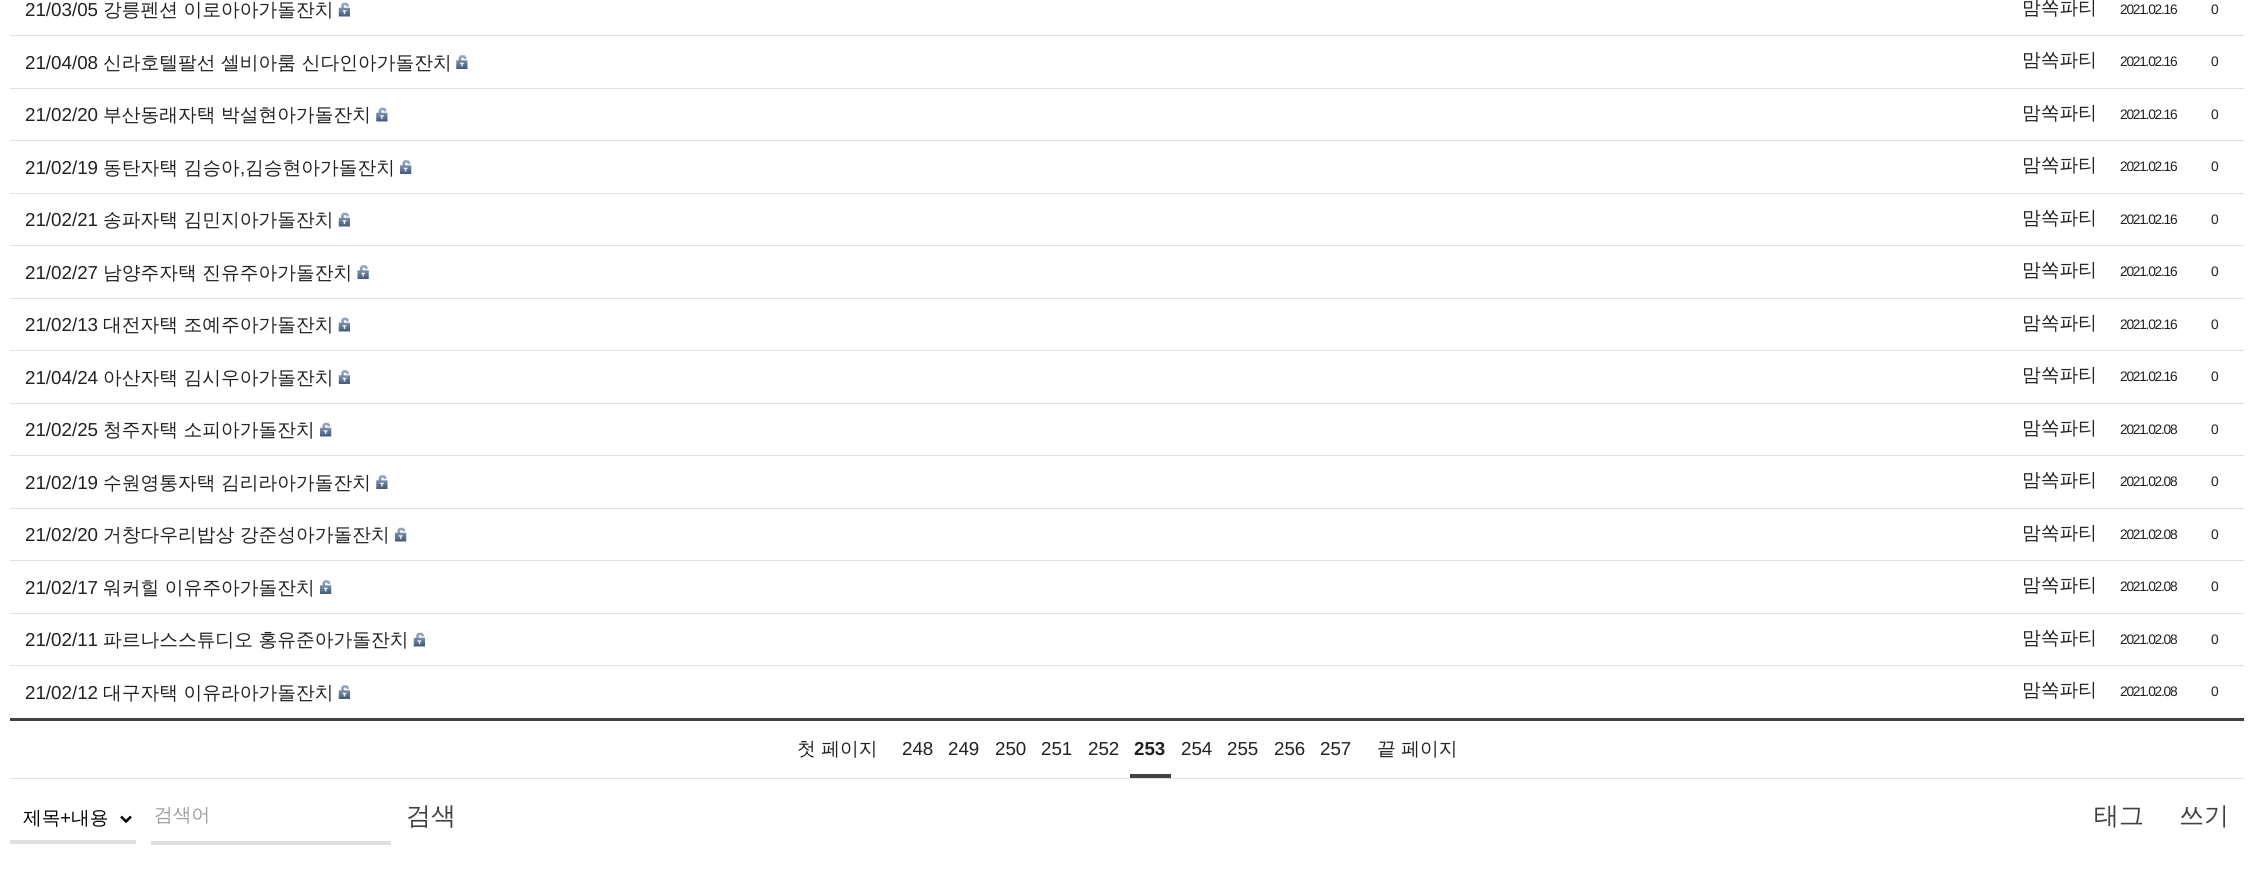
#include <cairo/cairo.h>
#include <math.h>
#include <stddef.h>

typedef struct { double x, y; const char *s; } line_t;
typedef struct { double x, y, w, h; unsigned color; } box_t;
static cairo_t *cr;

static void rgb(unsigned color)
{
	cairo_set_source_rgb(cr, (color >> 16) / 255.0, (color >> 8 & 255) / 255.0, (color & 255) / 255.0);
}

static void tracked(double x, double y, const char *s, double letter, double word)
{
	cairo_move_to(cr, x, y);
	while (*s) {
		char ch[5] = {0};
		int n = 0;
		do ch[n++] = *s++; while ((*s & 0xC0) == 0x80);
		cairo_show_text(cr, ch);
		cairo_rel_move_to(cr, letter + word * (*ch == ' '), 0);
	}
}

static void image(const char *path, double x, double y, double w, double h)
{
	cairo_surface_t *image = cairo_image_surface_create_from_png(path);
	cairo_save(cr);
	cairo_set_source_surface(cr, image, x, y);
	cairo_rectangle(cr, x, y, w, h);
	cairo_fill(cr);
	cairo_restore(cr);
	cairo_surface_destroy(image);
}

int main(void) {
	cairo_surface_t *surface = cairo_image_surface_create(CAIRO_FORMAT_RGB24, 2253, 892);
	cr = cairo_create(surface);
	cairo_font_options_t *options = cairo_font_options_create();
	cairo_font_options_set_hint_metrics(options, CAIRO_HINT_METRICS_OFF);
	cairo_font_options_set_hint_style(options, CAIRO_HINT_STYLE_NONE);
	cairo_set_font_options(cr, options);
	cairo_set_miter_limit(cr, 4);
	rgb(0xffffff);
	cairo_paint(cr);
	rgb(0x424242);
	cairo_rectangle(cr, 10, 718, 2234, 3);
	cairo_fill(cr);
	rgb(0xe0e0e0);
	cairo_rectangle(cr, 10, 35, 2234, 1);
	cairo_fill(cr);
	image("img/1.png", 338, 2, 12, 15);
	cairo_rectangle(cr, 10, 88, 2234, 1);
	cairo_fill(cr);
	image("img/2.png", 456, 55, 12, 14);
	cairo_rectangle(cr, 10, 140, 2234, 1);
	cairo_fill(cr);
	image("img/3.png", 376, 107, 12, 15);
	cairo_rectangle(cr, 10, 193, 2234, 1);
	cairo_fill(cr);
	image("img/4.png", 400, 160, 12, 14);
	cairo_rectangle(cr, 10, 245, 2234, 1);
	cairo_fill(cr);
	image("img/1.png", 338, 212, 12, 15);
	cairo_rectangle(cr, 10, 298, 2234, 1);
	cairo_fill(cr);
	image("img/5.png", 357, 265, 12, 14);
	cairo_rectangle(cr, 10, 350, 2234, 1);
	cairo_fill(cr);
	image("img/1.png", 338, 317, 12, 15);
	cairo_rectangle(cr, 10, 403, 2234, 1);
	cairo_fill(cr);
	image("img/6.png", 338, 370, 12, 14);
	cairo_rectangle(cr, 10, 455, 2234, 1);
	cairo_fill(cr);
	image("img/7.png", 320, 422, 12, 15);
	cairo_rectangle(cr, 10, 508, 2234, 1);
	cairo_fill(cr);
	image("img/2.png", 376, 475, 12, 14);
	cairo_rectangle(cr, 10, 560, 2234, 1);
	cairo_fill(cr);
	image("img/7.png", 395, 527, 12, 15);
	cairo_rectangle(cr, 10, 613, 2234, 1);
	cairo_fill(cr);
	image("img/4.png", 320, 580, 12, 14);
	cairo_rectangle(cr, 10, 665, 2234, 1);
	cairo_fill(cr);
	image("img/8.png", 413, 632, 12, 15);
	image("img/6.png", 338, 685, 12, 14);
	{
		static const box_t items[] = {
			{10, 778, 2234, 1, 0xe0e0e0},
			{1130, 774, 41, 4, 0x424242},
			{10, 840, 126, 4, 0xe0e0e0},
		};
		for (size_t i = 0; i < sizeof items / sizeof *items; i++) {
			rgb(items[i].color);
			cairo_rectangle(cr, items[i].x, items[i].y, items[i].w, items[i].h);
			cairo_fill(cr);
		}
	}
	cairo_new_path(cr);
	cairo_move_to(cr, 121, 816.5);
	cairo_line_to(cr, 126, 821.5);
	cairo_line_to(cr, 131, 816.5);
	rgb(0x000000);
	cairo_set_line_width(cr, 2.5);
	cairo_stroke(cr);
	rgb(0xe0e0e0);
	cairo_rectangle(cr, 151, 841, 240, 4);
	cairo_fill(cr);
	cairo_select_font_face(cr, "Liberation Sans", CAIRO_FONT_SLANT_NORMAL, CAIRO_FONT_WEIGHT_NORMAL);
	cairo_set_font_size(cr, 18.75);
	rgb(0x212121);
	cairo_move_to(cr, 25, 16);
	cairo_show_text(cr, "21/03/05");
	cairo_select_font_face(cr, "WenQuanYi Zen Hei Medium", CAIRO_FONT_SLANT_NORMAL, CAIRO_FONT_WEIGHT_NORMAL);
	cairo_move_to(cr, 103, 16);
	cairo_show_text(cr, "강릉펜션 이로아아가돌잔치");
	cairo_move_to(cr, 2022, 14);
	cairo_show_text(cr, "맘쏙파티");
	cairo_select_font_face(cr, "Liberation Sans", CAIRO_FONT_SLANT_NORMAL, CAIRO_FONT_WEIGHT_NORMAL);
	cairo_set_font_size(cr, 13.75);
	tracked(2120, 14, "2021.02.16", -1.25, 0);
	tracked(2211, 14, "0", -1.25, 0);
	cairo_set_font_size(cr, 18.75);
	cairo_move_to(cr, 25, 69);
	cairo_show_text(cr, "21/04/08");
	cairo_select_font_face(cr, "WenQuanYi Zen Hei Medium", CAIRO_FONT_SLANT_NORMAL, CAIRO_FONT_WEIGHT_NORMAL);
	cairo_move_to(cr, 103, 69);
	cairo_show_text(cr, "신라호텔팔선 셀비아룸 신다인아가돌잔치");
	cairo_move_to(cr, 2022, 66);
	cairo_show_text(cr, "맘쏙파티");
	cairo_select_font_face(cr, "Liberation Sans", CAIRO_FONT_SLANT_NORMAL, CAIRO_FONT_WEIGHT_NORMAL);
	cairo_set_font_size(cr, 13.75);
	tracked(2120, 66, "2021.02.16", -1.25, 0);
	tracked(2211, 66, "0", -1.25, 0);
	cairo_set_font_size(cr, 18.75);
	cairo_move_to(cr, 25, 121);
	cairo_show_text(cr, "21/02/20");
	cairo_select_font_face(cr, "WenQuanYi Zen Hei Medium", CAIRO_FONT_SLANT_NORMAL, CAIRO_FONT_WEIGHT_NORMAL);
	cairo_move_to(cr, 103, 121);
	cairo_show_text(cr, "부산동래자택 박설현아가돌잔치");
	cairo_move_to(cr, 2022, 119);
	cairo_show_text(cr, "맘쏙파티");
	cairo_select_font_face(cr, "Liberation Sans", CAIRO_FONT_SLANT_NORMAL, CAIRO_FONT_WEIGHT_NORMAL);
	cairo_set_font_size(cr, 13.75);
	tracked(2120, 119, "2021.02.16", -1.25, 0);
	tracked(2211, 119, "0", -1.25, 0);
	cairo_set_font_size(cr, 18.75);
	cairo_move_to(cr, 25, 174);
	cairo_show_text(cr, "21/02/19");
	cairo_select_font_face(cr, "WenQuanYi Zen Hei Medium", CAIRO_FONT_SLANT_NORMAL, CAIRO_FONT_WEIGHT_NORMAL);
	cairo_move_to(cr, 103, 174);
	cairo_show_text(cr, "동탄자택 김승아");
	cairo_move_to(cr, 245, 174);
	cairo_show_text(cr, "김승현아가돌잔치");
	cairo_select_font_face(cr, "Liberation Sans", CAIRO_FONT_SLANT_NORMAL, CAIRO_FONT_WEIGHT_NORMAL);
	cairo_move_to(cr, 240, 174);
	cairo_show_text(cr, ",");
	cairo_select_font_face(cr, "WenQuanYi Zen Hei Medium", CAIRO_FONT_SLANT_NORMAL, CAIRO_FONT_WEIGHT_NORMAL);
	cairo_move_to(cr, 2022, 171);
	cairo_show_text(cr, "맘쏙파티");
	cairo_select_font_face(cr, "Liberation Sans", CAIRO_FONT_SLANT_NORMAL, CAIRO_FONT_WEIGHT_NORMAL);
	cairo_set_font_size(cr, 13.75);
	tracked(2120, 171, "2021.02.16", -1.25, 0);
	tracked(2211, 171, "0", -1.25, 0);
	cairo_set_font_size(cr, 18.75);
	cairo_move_to(cr, 25, 226);
	cairo_show_text(cr, "21/02/21");
	cairo_select_font_face(cr, "WenQuanYi Zen Hei Medium", CAIRO_FONT_SLANT_NORMAL, CAIRO_FONT_WEIGHT_NORMAL);
	cairo_move_to(cr, 103, 226);
	cairo_show_text(cr, "송파자택 김민지아가돌잔치");
	cairo_move_to(cr, 2022, 224);
	cairo_show_text(cr, "맘쏙파티");
	cairo_select_font_face(cr, "Liberation Sans", CAIRO_FONT_SLANT_NORMAL, CAIRO_FONT_WEIGHT_NORMAL);
	cairo_set_font_size(cr, 13.75);
	tracked(2120, 224, "2021.02.16", -1.25, 0);
	tracked(2211, 224, "0", -1.25, 0);
	cairo_set_font_size(cr, 18.75);
	cairo_move_to(cr, 25, 279);
	cairo_show_text(cr, "21/02/27");
	cairo_select_font_face(cr, "WenQuanYi Zen Hei Medium", CAIRO_FONT_SLANT_NORMAL, CAIRO_FONT_WEIGHT_NORMAL);
	cairo_move_to(cr, 103, 279);
	cairo_show_text(cr, "남양주자택 진유주아가돌잔치");
	cairo_move_to(cr, 2022, 276);
	cairo_show_text(cr, "맘쏙파티");
	cairo_select_font_face(cr, "Liberation Sans", CAIRO_FONT_SLANT_NORMAL, CAIRO_FONT_WEIGHT_NORMAL);
	cairo_set_font_size(cr, 13.75);
	tracked(2120, 276, "2021.02.16", -1.25, 0);
	tracked(2211, 276, "0", -1.25, 0);
	cairo_set_font_size(cr, 18.75);
	cairo_move_to(cr, 25, 331);
	cairo_show_text(cr, "21/02/13");
	cairo_select_font_face(cr, "WenQuanYi Zen Hei Medium", CAIRO_FONT_SLANT_NORMAL, CAIRO_FONT_WEIGHT_NORMAL);
	cairo_move_to(cr, 103, 331);
	cairo_show_text(cr, "대전자택 조예주아가돌잔치");
	cairo_move_to(cr, 2022, 329);
	cairo_show_text(cr, "맘쏙파티");
	cairo_select_font_face(cr, "Liberation Sans", CAIRO_FONT_SLANT_NORMAL, CAIRO_FONT_WEIGHT_NORMAL);
	cairo_set_font_size(cr, 13.75);
	tracked(2120, 329, "2021.02.16", -1.25, 0);
	tracked(2211, 329, "0", -1.25, 0);
	cairo_set_font_size(cr, 18.75);
	cairo_move_to(cr, 25, 384);
	cairo_show_text(cr, "21/04/24");
	cairo_select_font_face(cr, "WenQuanYi Zen Hei Medium", CAIRO_FONT_SLANT_NORMAL, CAIRO_FONT_WEIGHT_NORMAL);
	cairo_move_to(cr, 103, 384);
	cairo_show_text(cr, "아산자택 김시우아가돌잔치");
	cairo_move_to(cr, 2022, 381);
	cairo_show_text(cr, "맘쏙파티");
	cairo_select_font_face(cr, "Liberation Sans", CAIRO_FONT_SLANT_NORMAL, CAIRO_FONT_WEIGHT_NORMAL);
	cairo_set_font_size(cr, 13.75);
	tracked(2120, 381, "2021.02.16", -1.25, 0);
	tracked(2211, 381, "0", -1.25, 0);
	cairo_set_font_size(cr, 18.75);
	cairo_move_to(cr, 25, 436);
	cairo_show_text(cr, "21/02/25");
	cairo_select_font_face(cr, "WenQuanYi Zen Hei Medium", CAIRO_FONT_SLANT_NORMAL, CAIRO_FONT_WEIGHT_NORMAL);
	cairo_move_to(cr, 103, 436);
	cairo_show_text(cr, "청주자택 소피아가돌잔치");
	cairo_move_to(cr, 2022, 434);
	cairo_show_text(cr, "맘쏙파티");
	cairo_select_font_face(cr, "Liberation Sans", CAIRO_FONT_SLANT_NORMAL, CAIRO_FONT_WEIGHT_NORMAL);
	cairo_set_font_size(cr, 13.75);
	tracked(2120, 434, "2021.02.08", -1.25, 0);
	tracked(2211, 434, "0", -1.25, 0);
	cairo_set_font_size(cr, 18.75);
	cairo_move_to(cr, 25, 489);
	cairo_show_text(cr, "21/02/19");
	cairo_select_font_face(cr, "WenQuanYi Zen Hei Medium", CAIRO_FONT_SLANT_NORMAL, CAIRO_FONT_WEIGHT_NORMAL);
	cairo_move_to(cr, 103, 489);
	cairo_show_text(cr, "수원영통자택 김리라아가돌잔치");
	cairo_move_to(cr, 2022, 486);
	cairo_show_text(cr, "맘쏙파티");
	cairo_select_font_face(cr, "Liberation Sans", CAIRO_FONT_SLANT_NORMAL, CAIRO_FONT_WEIGHT_NORMAL);
	cairo_set_font_size(cr, 13.75);
	tracked(2120, 486, "2021.02.08", -1.25, 0);
	tracked(2211, 486, "0", -1.25, 0);
	cairo_set_font_size(cr, 18.75);
	cairo_move_to(cr, 25, 541);
	cairo_show_text(cr, "21/02/20");
	cairo_select_font_face(cr, "WenQuanYi Zen Hei Medium", CAIRO_FONT_SLANT_NORMAL, CAIRO_FONT_WEIGHT_NORMAL);
	cairo_move_to(cr, 103, 541);
	cairo_show_text(cr, "거창다우리밥상 강준성아가돌잔치");
	cairo_move_to(cr, 2022, 539);
	cairo_show_text(cr, "맘쏙파티");
	cairo_select_font_face(cr, "Liberation Sans", CAIRO_FONT_SLANT_NORMAL, CAIRO_FONT_WEIGHT_NORMAL);
	cairo_set_font_size(cr, 13.75);
	tracked(2120, 539, "2021.02.08", -1.25, 0);
	tracked(2211, 539, "0", -1.25, 0);
	cairo_set_font_size(cr, 18.75);
	cairo_move_to(cr, 25, 594);
	cairo_show_text(cr, "21/02/17");
	cairo_select_font_face(cr, "WenQuanYi Zen Hei Medium", CAIRO_FONT_SLANT_NORMAL, CAIRO_FONT_WEIGHT_NORMAL);
	cairo_move_to(cr, 103, 594);
	cairo_show_text(cr, "워커힐 이유주아가돌잔치");
	cairo_move_to(cr, 2022, 591);
	cairo_show_text(cr, "맘쏙파티");
	cairo_select_font_face(cr, "Liberation Sans", CAIRO_FONT_SLANT_NORMAL, CAIRO_FONT_WEIGHT_NORMAL);
	cairo_set_font_size(cr, 13.75);
	tracked(2120, 591, "2021.02.08", -1.25, 0);
	tracked(2211, 591, "0", -1.25, 0);
	cairo_set_font_size(cr, 18.75);
	cairo_move_to(cr, 25, 646);
	cairo_show_text(cr, "21/02/11");
	cairo_select_font_face(cr, "WenQuanYi Zen Hei Medium", CAIRO_FONT_SLANT_NORMAL, CAIRO_FONT_WEIGHT_NORMAL);
	cairo_move_to(cr, 103, 646);
	cairo_show_text(cr, "파르나스스튜디오 홍유준아가돌잔치");
	cairo_move_to(cr, 2022, 644);
	cairo_show_text(cr, "맘쏙파티");
	cairo_select_font_face(cr, "Liberation Sans", CAIRO_FONT_SLANT_NORMAL, CAIRO_FONT_WEIGHT_NORMAL);
	cairo_set_font_size(cr, 13.75);
	tracked(2120, 644, "2021.02.08", -1.25, 0);
	tracked(2211, 644, "0", -1.25, 0);
	cairo_set_font_size(cr, 18.75);
	cairo_move_to(cr, 25, 699);
	cairo_show_text(cr, "21/02/12");
	cairo_select_font_face(cr, "WenQuanYi Zen Hei Medium", CAIRO_FONT_SLANT_NORMAL, CAIRO_FONT_WEIGHT_NORMAL);
	cairo_move_to(cr, 103, 699);
	cairo_show_text(cr, "대구자택 이유라아가돌잔치");
	cairo_move_to(cr, 2022, 696);
	cairo_show_text(cr, "맘쏙파티");
	cairo_select_font_face(cr, "Liberation Sans", CAIRO_FONT_SLANT_NORMAL, CAIRO_FONT_WEIGHT_NORMAL);
	cairo_set_font_size(cr, 13.75);
	tracked(2120, 696, "2021.02.08", -1.25, 0);
	tracked(2211, 696, "0", -1.25, 0);
	cairo_select_font_face(cr, "WenQuanYi Zen Hei Medium", CAIRO_FONT_SLANT_NORMAL, CAIRO_FONT_WEIGHT_NORMAL);
	cairo_set_font_size(cr, 18.75);
	cairo_move_to(cr, 797, 755);
	cairo_show_text(cr, "첫 페이지");
	cairo_select_font_face(cr, "Liberation Sans", CAIRO_FONT_SLANT_NORMAL, CAIRO_FONT_WEIGHT_NORMAL);
	{
		static const line_t items[] = {
			{902, 755, "248"},
			{948, 755, "249"},
			{995, 755, "250"},
			{1041, 755, "251"},
			{1088, 755, "252"},
		};
		for (size_t i = 0; i < sizeof items / sizeof *items; i++) {
			cairo_move_to(cr, items[i].x, items[i].y);
			cairo_show_text(cr, items[i].s);
		}
	}
	cairo_select_font_face(cr, "Liberation Sans", CAIRO_FONT_SLANT_NORMAL, CAIRO_FONT_WEIGHT_BOLD);
	cairo_move_to(cr, 1134, 755);
	cairo_show_text(cr, "253");
	cairo_select_font_face(cr, "Liberation Sans", CAIRO_FONT_SLANT_NORMAL, CAIRO_FONT_WEIGHT_NORMAL);
	{
		static const line_t items[] = {
			{1181, 755, "254"},
			{1227, 755, "255"},
			{1274, 755, "256"},
			{1320, 755, "257"},
		};
		for (size_t i = 0; i < sizeof items / sizeof *items; i++) {
			cairo_move_to(cr, items[i].x, items[i].y);
			cairo_show_text(cr, items[i].s);
		}
	}
	cairo_select_font_face(cr, "WenQuanYi Zen Hei Medium", CAIRO_FONT_SLANT_NORMAL, CAIRO_FONT_WEIGHT_NORMAL);
	cairo_move_to(cr, 1377, 755);
	cairo_show_text(cr, "끝 페이지");
	rgb(0x000000);
	cairo_move_to(cr, 23, 824);
	cairo_show_text(cr, "제목");
	cairo_select_font_face(cr, "Liberation Sans", CAIRO_FONT_SLANT_NORMAL, CAIRO_FONT_WEIGHT_NORMAL);
	cairo_move_to(cr, 60, 824);
	cairo_show_text(cr, "+");
	cairo_select_font_face(cr, "WenQuanYi Zen Hei Medium", CAIRO_FONT_SLANT_NORMAL, CAIRO_FONT_WEIGHT_NORMAL);
	cairo_move_to(cr, 71, 824);
	cairo_show_text(cr, "내용");
	rgb(0x9e9e9e);
	cairo_move_to(cr, 154, 821);
	cairo_show_text(cr, "검색어");
	cairo_set_font_size(cr, 25);
	rgb(0x424242);
	{
		static const line_t items[] = {
			{406, 824, "검색"},
			{2094, 824, "태그"},
			{2179, 824, "쓰기"},
		};
		for (size_t i = 0; i < sizeof items / sizeof *items; i++) {
			cairo_move_to(cr, items[i].x, items[i].y);
			cairo_show_text(cr, items[i].s);
		}
	}
	cairo_surface_write_to_png(surface, "page.png");
	cairo_font_options_destroy(options);
	cairo_destroy(cr);
	cairo_surface_destroy(surface);
	return 0;
}
